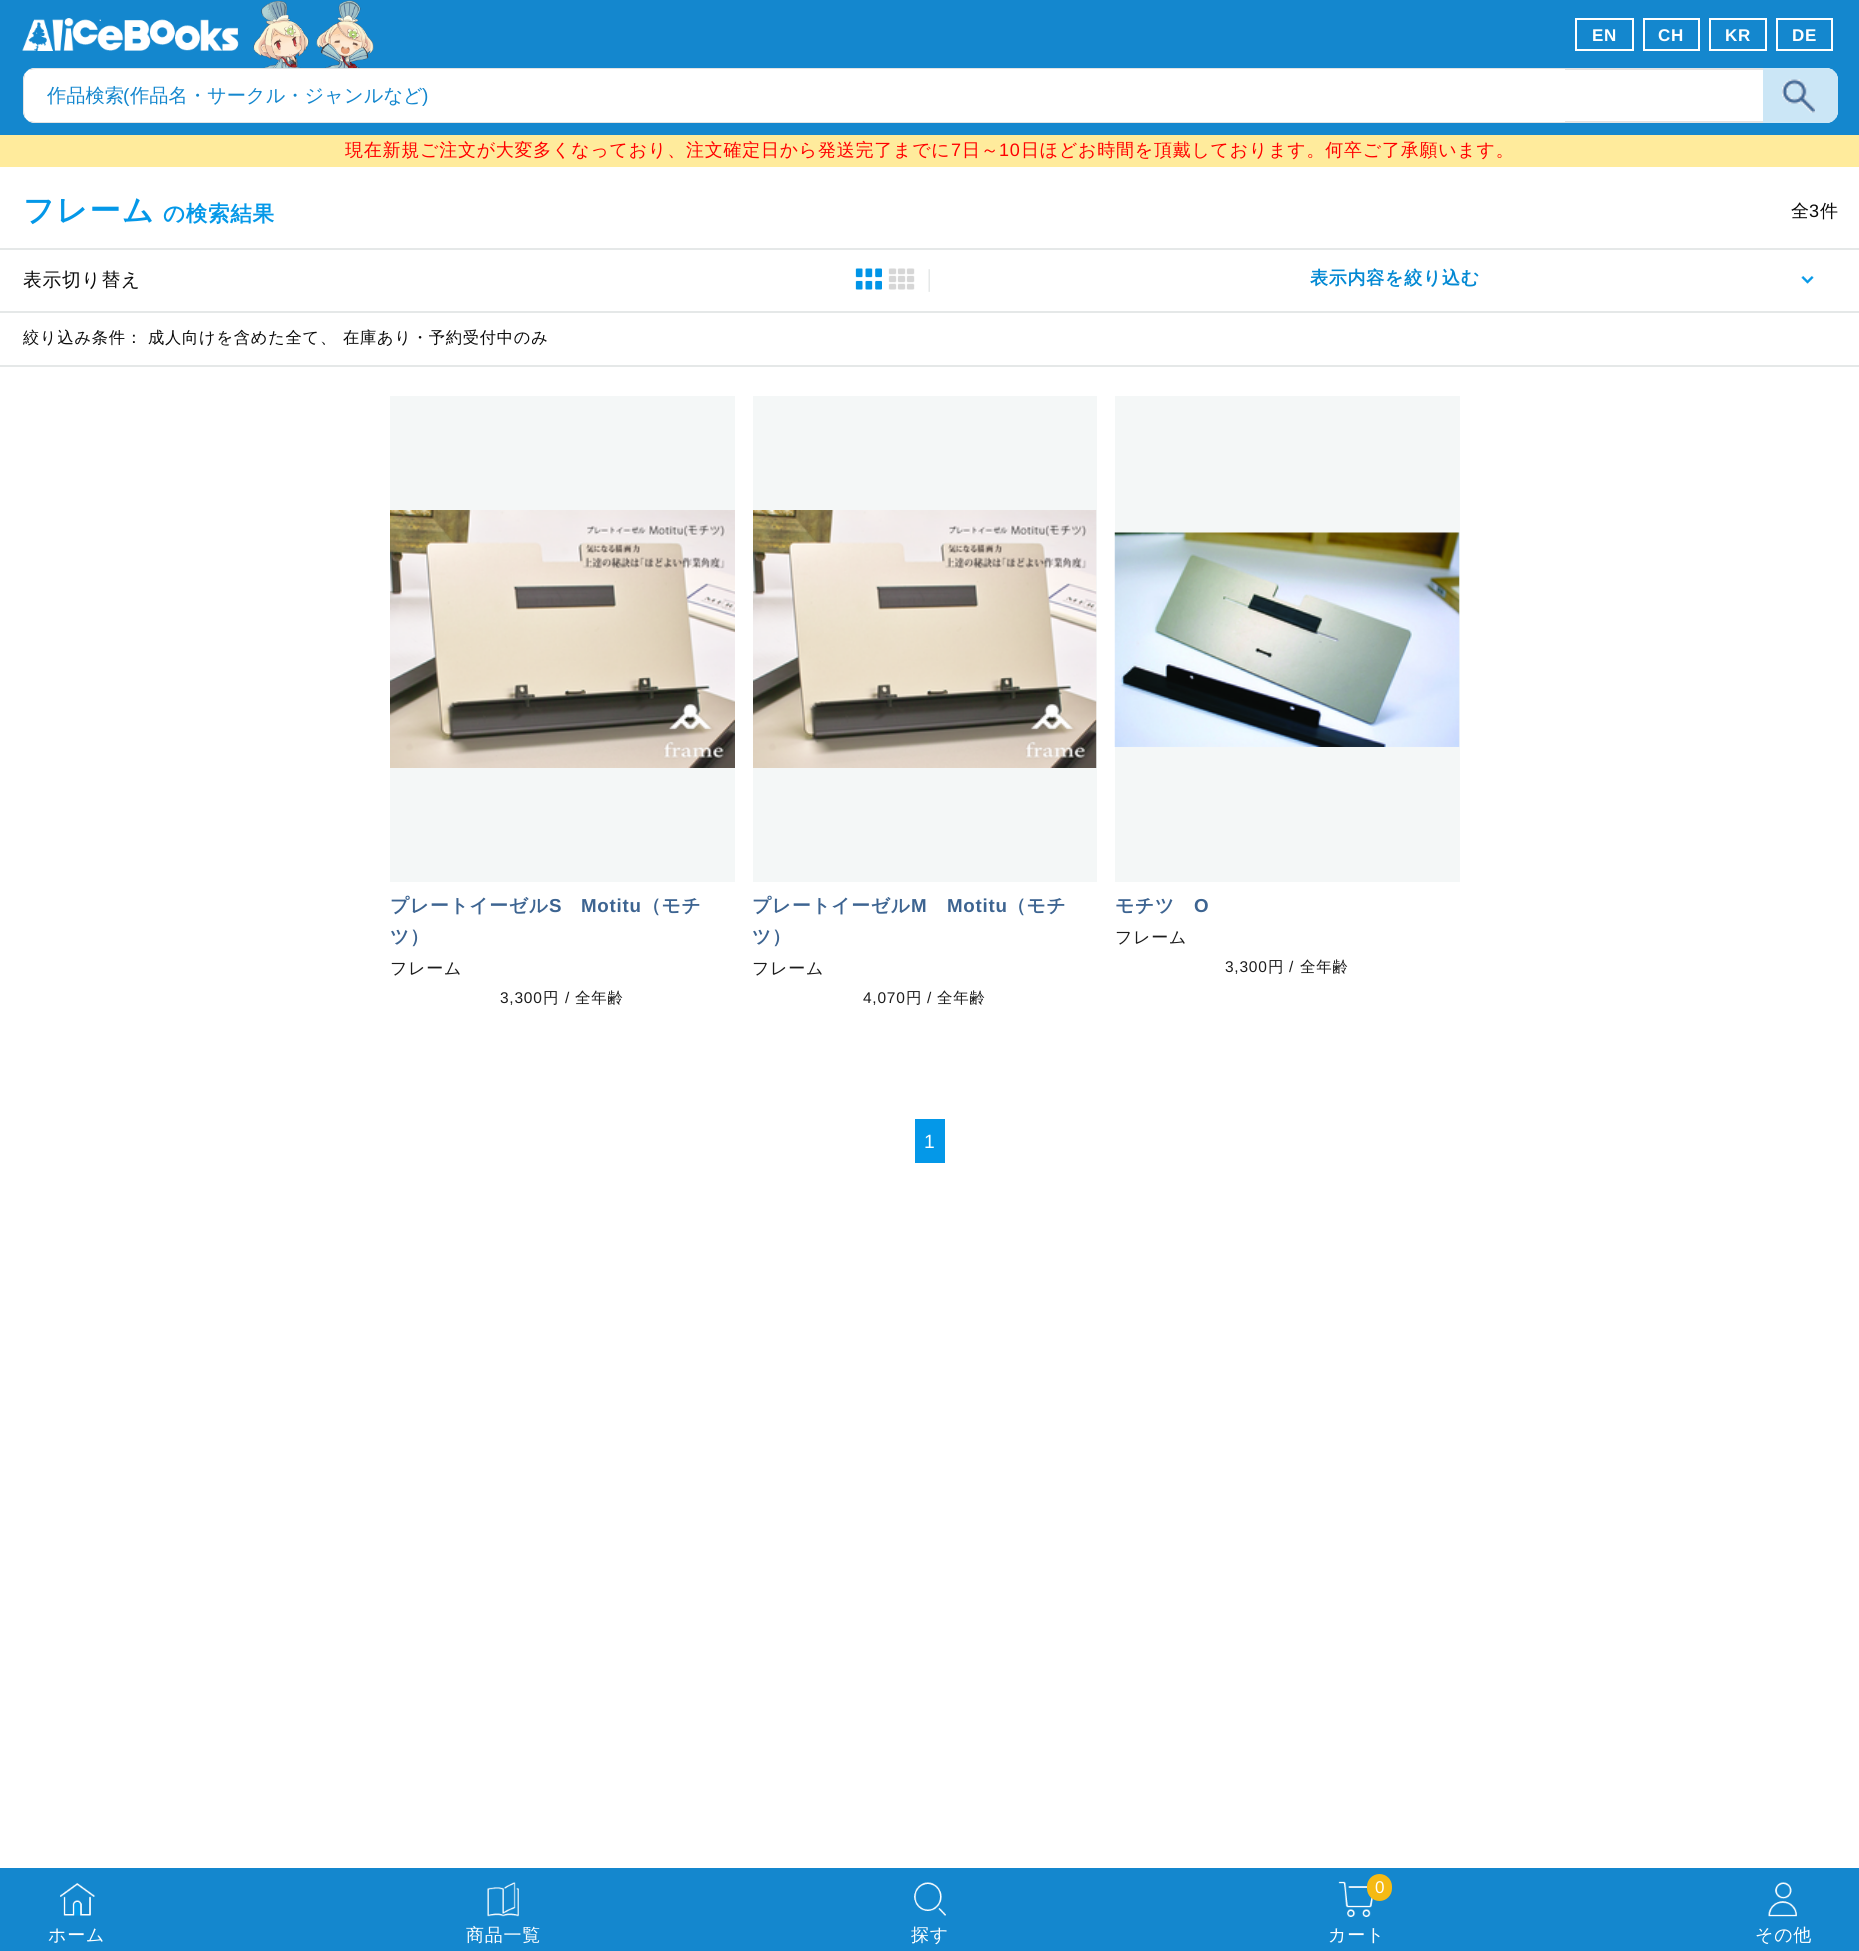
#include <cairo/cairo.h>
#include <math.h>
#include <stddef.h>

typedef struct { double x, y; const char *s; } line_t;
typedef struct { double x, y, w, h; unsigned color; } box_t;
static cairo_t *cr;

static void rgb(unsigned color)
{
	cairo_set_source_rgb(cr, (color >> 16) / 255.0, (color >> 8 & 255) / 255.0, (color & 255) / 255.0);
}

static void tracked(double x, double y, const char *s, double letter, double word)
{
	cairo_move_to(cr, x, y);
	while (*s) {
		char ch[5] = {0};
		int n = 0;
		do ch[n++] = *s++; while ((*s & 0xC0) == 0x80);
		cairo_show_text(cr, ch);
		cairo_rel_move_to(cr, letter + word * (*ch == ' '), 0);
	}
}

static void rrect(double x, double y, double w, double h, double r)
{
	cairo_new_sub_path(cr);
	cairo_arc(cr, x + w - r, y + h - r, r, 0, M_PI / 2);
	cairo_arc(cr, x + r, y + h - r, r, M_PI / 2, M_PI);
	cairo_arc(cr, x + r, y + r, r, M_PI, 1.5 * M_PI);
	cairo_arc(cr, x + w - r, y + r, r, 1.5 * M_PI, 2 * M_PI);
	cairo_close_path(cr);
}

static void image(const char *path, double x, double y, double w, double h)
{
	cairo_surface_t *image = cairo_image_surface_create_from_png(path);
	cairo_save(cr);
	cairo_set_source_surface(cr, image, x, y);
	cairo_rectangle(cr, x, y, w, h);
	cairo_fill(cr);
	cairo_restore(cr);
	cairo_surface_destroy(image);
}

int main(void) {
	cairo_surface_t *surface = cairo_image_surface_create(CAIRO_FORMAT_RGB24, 1859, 1951);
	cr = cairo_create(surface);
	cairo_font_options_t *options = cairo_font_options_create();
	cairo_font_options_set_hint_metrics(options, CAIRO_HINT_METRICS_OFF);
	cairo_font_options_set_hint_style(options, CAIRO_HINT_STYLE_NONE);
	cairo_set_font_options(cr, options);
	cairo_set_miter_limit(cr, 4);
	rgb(0xffffff);
	cairo_paint(cr);
	rgb(0x1487ce);
	cairo_rectangle(cr, 0, 0, 1859, 135);
	cairo_fill(cr);
	image("img/1.png", 99, 0, 275, 68);
	image("img/2.png", 22, 18, 217, 33);
	cairo_rectangle(cr, 1576, 19, 57, 31);
	rgb(0xffffff);
	cairo_stroke(cr);
	cairo_rectangle(cr, 1644, 19, 55, 31);
	cairo_stroke(cr);
	cairo_rectangle(cr, 1710, 19, 56, 31);
	cairo_stroke(cr);
	cairo_rectangle(cr, 1777, 19, 55, 31);
	cairo_stroke(cr);
	rrect(23, 68, 1815, 55, 12);
	cairo_fill(cr);
	rgb(0xe3e3e3);
	cairo_set_fill_rule(cr, CAIRO_FILL_RULE_EVEN_ODD);
	cairo_new_path(cr);
	cairo_move_to(cr, 23, 80);
	cairo_line_to(cr, 23, 111);
	cairo_curve_to(cr, 23, 113, 24, 116, 25, 118);
	cairo_line_to(cr, 25, 73);
	cairo_curve_to(cr, 24, 75, 23, 78, 23, 80);
	cairo_close_path(cr);
	cairo_move_to(cr, 35, 68);
	cairo_curve_to(cr, 33, 68, 30, 69, 28, 70);
	cairo_line_to(cr, 1833, 70);
	cairo_curve_to(cr, 1831, 69, 1828, 68, 1826, 68);
	cairo_close_path(cr);
	cairo_move_to(cr, 1838, 80);
	cairo_curve_to(cr, 1838, 78, 1837, 75, 1836, 73);
	cairo_line_to(cr, 1836, 118);
	cairo_curve_to(cr, 1837, 116, 1838, 113, 1838, 111);
	cairo_close_path(cr);
	cairo_move_to(cr, 1826, 123);
	cairo_curve_to(cr, 1828, 123, 1831, 122, 1833, 121);
	cairo_line_to(cr, 28, 121);
	cairo_curve_to(cr, 30, 122, 33, 123, 35, 123);
	cairo_close_path(cr);
	cairo_fill(cr);
	rgb(0xffffff);
	cairo_new_path(cr);
	cairo_move_to(cr, 36, 69);
	cairo_line_to(cr, 1565, 69);
	cairo_line_to(cr, 1565, 122);
	cairo_line_to(cr, 36, 122);
	cairo_curve_to(cr, 29.5, 122, 24, 116.5, 24, 110);
	cairo_line_to(cr, 24, 81);
	cairo_curve_to(cr, 24, 74.5, 29.5, 69, 36, 69);
	cairo_close_path(cr);
	cairo_fill(cr);
	rgb(0xcbe6f6);
	cairo_new_path(cr);
	cairo_move_to(cr, 1838, 111);
	cairo_line_to(cr, 1838, 80);
	cairo_curve_to(cr, 1838, 78, 1837, 75, 1836, 73);
	cairo_line_to(cr, 1836, 118);
	cairo_curve_to(cr, 1837, 116, 1838, 113, 1838, 111);
	cairo_close_path(cr);
	cairo_move_to(cr, 1763, 68);
	cairo_line_to(cr, 1826, 68);
	cairo_curve_to(cr, 1828, 68, 1831, 69, 1833, 70);
	cairo_line_to(cr, 1765, 70);
	cairo_line_to(cr, 1765, 123);
	cairo_line_to(cr, 1763, 123);
	cairo_close_path(cr);
	cairo_fill(cr);
	cairo_save(cr);
	cairo_set_fill_rule(cr, CAIRO_FILL_RULE_WINDING);
	rrect(23, 68, 1815, 55, 12);
	cairo_clip(cr);
	cairo_rectangle(cr, 1764, 69, 72, 54);
	cairo_fill(cr);
	cairo_restore(cr);
	image("img/3.png", 1782, 79, 33, 34);
	rgb(0xffeb9c);
	cairo_rectangle(cr, 0, 135, 1859, 32);
	cairo_fill(cr);
	rgb(0xe5e8e8);
	cairo_rectangle(cr, 0, 248, 1859, 2);
	cairo_fill(cr);
	image("img/4.png", 928, 269, 2, 23);
	image("img/5.png", 855, 268, 27, 22);
	image("img/6.png", 888, 268, 27, 22);
	image("img/7.png", 1801, 276, 13, 8);
	{
		static const box_t items[] = {
			{0, 311, 1859, 2, 0xe5e8e8},
			{0, 365, 1859, 2, 0xe5e8e8},
			{390, 396, 345, 486, 0xf4f7f7},
		};
		for (size_t i = 0; i < sizeof items / sizeof *items; i++) {
			rgb(items[i].color);
			cairo_rectangle(cr, items[i].x, items[i].y, items[i].w, items[i].h);
			cairo_fill(cr);
		}
	}
	image("img/8.png", 390, 510, 345, 258);
	cairo_rectangle(cr, 753, 396, 344, 486);
	cairo_fill(cr);
	image("img/9.png", 753, 510, 344, 258);
	cairo_rectangle(cr, 1115, 396, 345, 486);
	cairo_fill(cr);
	image("img/10.png", 1114, 532, 346, 215);
	rgb(0x0498e8);
	cairo_rectangle(cr, 915, 1119, 30, 44);
	cairo_fill(cr);
	rgb(0x1487ce);
	cairo_rectangle(cr, 0, 1868, 1859, 83);
	cairo_fill(cr);
	image("img/11.png", 60, 1883, 35, 33);
	image("img/12.png", 487, 1882, 32, 35);
	image("img/13.png", 914, 1882, 32, 34);
	image("img/14.png", 1338, 1881, 35, 36);
	rgb(0xf5ba14);
	rrect(1367, 1874, 25, 27, 12.5);
	cairo_fill(cr);
	image("img/15.png", 1768, 1882, 29, 35);
	cairo_select_font_face(cr, "Liberation Sans", CAIRO_FONT_SLANT_NORMAL, CAIRO_FONT_WEIGHT_BOLD);
	cairo_set_font_size(cr, 17);
	rgb(0xffffff);
	{
		static const line_t items[] = {
			{1592, 41, "EN"},
			{1658, 41, "CH"},
			{1725, 41, "KR"},
			{1792, 41, "DE"},
		};
		for (size_t i = 0; i < sizeof items / sizeof *items; i++) {
			tracked(items[i].x, items[i].y, items[i].s, 0.75, 0);
		}
	}
	cairo_select_font_face(cr, "WenQuanYi Zen Hei Medium", CAIRO_FONT_SLANT_NORMAL, CAIRO_FONT_WEIGHT_NORMAL);
	cairo_set_font_size(cr, 19.25);
	rgb(0x1487ce);
	cairo_move_to(cr, 47, 102);
	cairo_show_text(cr, "作品検索");
	cairo_select_font_face(cr, "Liberation Sans", CAIRO_FONT_SLANT_NORMAL, CAIRO_FONT_WEIGHT_NORMAL);
	cairo_move_to(cr, 123, 102);
	cairo_show_text(cr, "(");
	cairo_select_font_face(cr, "WenQuanYi Zen Hei Medium", CAIRO_FONT_SLANT_NORMAL, CAIRO_FONT_WEIGHT_NORMAL);
	cairo_move_to(cr, 130, 102);
	cairo_show_text(cr, "作品名・サークル・ジャンルなど");
	cairo_select_font_face(cr, "Liberation Sans", CAIRO_FONT_SLANT_NORMAL, CAIRO_FONT_WEIGHT_NORMAL);
	cairo_move_to(cr, 422, 102);
	cairo_show_text(cr, ")");
	cairo_select_font_face(cr, "WenQuanYi Zen Hei Medium", CAIRO_FONT_SLANT_NORMAL, CAIRO_FONT_WEIGHT_NORMAL);
	cairo_set_font_size(cr, 18);
	rgb(0xff0000);
	tracked(345, 156, "現在新規ご注文が大変多くなっており、注文確定日から発送完了までに", 0.75, 0);
	cairo_select_font_face(cr, "Liberation Sans", CAIRO_FONT_SLANT_NORMAL, CAIRO_FONT_WEIGHT_NORMAL);
	tracked(951, 156, "7", 0.75, 0);
	cairo_select_font_face(cr, "WenQuanYi Zen Hei Medium", CAIRO_FONT_SLANT_NORMAL, CAIRO_FONT_WEIGHT_NORMAL);
	tracked(962, 156, "日～", 0.75, 0);
	cairo_select_font_face(cr, "Liberation Sans", CAIRO_FONT_SLANT_NORMAL, CAIRO_FONT_WEIGHT_NORMAL);
	tracked(999, 156, "10", 0.75, 0);
	cairo_select_font_face(cr, "WenQuanYi Zen Hei Medium", CAIRO_FONT_SLANT_NORMAL, CAIRO_FONT_WEIGHT_NORMAL);
	tracked(1021, 156, "日ほどお時間を頂戴しております。何卒ご了承願います。", 0.75, 0);
	cairo_select_font_face(cr, "WenQuanYi Zen Hei", CAIRO_FONT_SLANT_NORMAL, CAIRO_FONT_WEIGHT_BOLD);
	cairo_set_font_size(cr, 31);
	rgb(0x0498e8);
	tracked(23, 221, "フレーム", 1.5, 0);
	cairo_set_font_size(cr, 21.5);
	tracked(163, 221, "の検索結果", 0.75, 0);
	cairo_select_font_face(cr, "WenQuanYi Zen Hei Medium", CAIRO_FONT_SLANT_NORMAL, CAIRO_FONT_WEIGHT_NORMAL);
	cairo_set_font_size(cr, 18);
	rgb(0x0a0a0a);
	cairo_move_to(cr, 1791, 217);
	cairo_show_text(cr, "全");
	cairo_select_font_face(cr, "Liberation Sans", CAIRO_FONT_SLANT_NORMAL, CAIRO_FONT_WEIGHT_NORMAL);
	cairo_move_to(cr, 1809, 217);
	cairo_show_text(cr, "3");
	cairo_select_font_face(cr, "WenQuanYi Zen Hei Medium", CAIRO_FONT_SLANT_NORMAL, CAIRO_FONT_WEIGHT_NORMAL);
	cairo_move_to(cr, 1820, 217);
	cairo_show_text(cr, "件");
	cairo_set_font_size(cr, 18.75);
	tracked(23, 286, "表示切り替え", 0.75, 0);
	cairo_select_font_face(cr, "WenQuanYi Zen Hei", CAIRO_FONT_SLANT_NORMAL, CAIRO_FONT_WEIGHT_BOLD);
	cairo_set_font_size(cr, 18);
	rgb(0x0389d3);
	tracked(1310, 284, "表示内容を絞り込む", 0.75, 0);
	cairo_select_font_face(cr, "WenQuanYi Zen Hei Medium", CAIRO_FONT_SLANT_NORMAL, CAIRO_FONT_WEIGHT_NORMAL);
	cairo_set_font_size(cr, 16.25);
	rgb(0x0a0a0a);
	{
		static const line_t items[] = {
			{23, 343, "絞り込み条件："},
			{148, 343, "成人向けを含めた全て、"},
			{343, 343, "在庫あり・予約受付中のみ"},
		};
		for (size_t i = 0; i < sizeof items / sizeof *items; i++) {
			tracked(items[i].x, items[i].y, items[i].s, 0.75, 0);
		}
	}
	cairo_select_font_face(cr, "WenQuanYi Zen Hei", CAIRO_FONT_SLANT_NORMAL, CAIRO_FONT_WEIGHT_BOLD);
	cairo_set_font_size(cr, 18.75);
	rgb(0x3d6491);
	tracked(390, 912, "プレートイーゼル", 0.75, 0);
	cairo_select_font_face(cr, "Liberation Sans", CAIRO_FONT_SLANT_NORMAL, CAIRO_FONT_WEIGHT_BOLD);
	tracked(549, 912, "S", 0.75, 0);
	tracked(581, 912, "Motitu", 0.75, 0);
	cairo_select_font_face(cr, "WenQuanYi Zen Hei", CAIRO_FONT_SLANT_NORMAL, CAIRO_FONT_WEIGHT_BOLD);
	tracked(642, 912, "（モチ", 0.75, 0);
	tracked(390, 943, "ツ）", 0.75, 0);
	cairo_select_font_face(cr, "WenQuanYi Zen Hei Medium", CAIRO_FONT_SLANT_NORMAL, CAIRO_FONT_WEIGHT_NORMAL);
	cairo_set_font_size(cr, 17);
	rgb(0x1c1c1c);
	tracked(390, 974, "フレーム", 0.75, 0);
	cairo_select_font_face(cr, "Liberation Sans", CAIRO_FONT_SLANT_NORMAL, CAIRO_FONT_WEIGHT_NORMAL);
	cairo_set_font_size(cr, 15.5);
	tracked(500, 1003, "3,300", 0.75, 0);
	cairo_select_font_face(cr, "WenQuanYi Zen Hei Medium", CAIRO_FONT_SLANT_NORMAL, CAIRO_FONT_WEIGHT_NORMAL);
	tracked(543, 1003, "円", 0.75, 0);
	cairo_select_font_face(cr, "Liberation Sans", CAIRO_FONT_SLANT_NORMAL, CAIRO_FONT_WEIGHT_NORMAL);
	tracked(565, 1003, "/", 0.75, 0);
	cairo_select_font_face(cr, "WenQuanYi Zen Hei Medium", CAIRO_FONT_SLANT_NORMAL, CAIRO_FONT_WEIGHT_NORMAL);
	tracked(575, 1003, "全年齢", 0.75, 0);
	cairo_select_font_face(cr, "WenQuanYi Zen Hei", CAIRO_FONT_SLANT_NORMAL, CAIRO_FONT_WEIGHT_BOLD);
	cairo_set_font_size(cr, 18.75);
	rgb(0x3d6491);
	tracked(752, 912, "プレートイーゼル", 0.75, 0);
	cairo_select_font_face(cr, "Liberation Sans", CAIRO_FONT_SLANT_NORMAL, CAIRO_FONT_WEIGHT_BOLD);
	tracked(911, 912, "M", 0.75, 0);
	tracked(947, 912, "Motitu", 0.75, 0);
	cairo_select_font_face(cr, "WenQuanYi Zen Hei", CAIRO_FONT_SLANT_NORMAL, CAIRO_FONT_WEIGHT_BOLD);
	tracked(1007, 912, "（モチ", 0.75, 0);
	tracked(752, 943, "ツ）", 0.75, 0);
	cairo_select_font_face(cr, "WenQuanYi Zen Hei Medium", CAIRO_FONT_SLANT_NORMAL, CAIRO_FONT_WEIGHT_NORMAL);
	cairo_set_font_size(cr, 17);
	rgb(0x1c1c1c);
	tracked(752, 974, "フレーム", 0.75, 0);
	cairo_select_font_face(cr, "Liberation Sans", CAIRO_FONT_SLANT_NORMAL, CAIRO_FONT_WEIGHT_NORMAL);
	cairo_set_font_size(cr, 15.5);
	tracked(863, 1003, "4,070", 0.75, 0);
	cairo_select_font_face(cr, "WenQuanYi Zen Hei Medium", CAIRO_FONT_SLANT_NORMAL, CAIRO_FONT_WEIGHT_NORMAL);
	tracked(906, 1003, "円", 0.75, 0);
	cairo_select_font_face(cr, "Liberation Sans", CAIRO_FONT_SLANT_NORMAL, CAIRO_FONT_WEIGHT_NORMAL);
	tracked(927, 1003, "/", 0.75, 0);
	cairo_select_font_face(cr, "WenQuanYi Zen Hei Medium", CAIRO_FONT_SLANT_NORMAL, CAIRO_FONT_WEIGHT_NORMAL);
	tracked(937, 1003, "全年齢", 0.75, 0);
	cairo_select_font_face(cr, "WenQuanYi Zen Hei", CAIRO_FONT_SLANT_NORMAL, CAIRO_FONT_WEIGHT_BOLD);
	cairo_set_font_size(cr, 18.75);
	rgb(0x3d6491);
	tracked(1115, 912, "モチツ", 0.75, 0);
	cairo_select_font_face(cr, "Liberation Sans", CAIRO_FONT_SLANT_NORMAL, CAIRO_FONT_WEIGHT_BOLD);
	tracked(1194, 912, "O", 0.75, 0);
	cairo_select_font_face(cr, "WenQuanYi Zen Hei Medium", CAIRO_FONT_SLANT_NORMAL, CAIRO_FONT_WEIGHT_NORMAL);
	cairo_set_font_size(cr, 17);
	rgb(0x1c1c1c);
	tracked(1115, 943, "フレーム", 0.75, 0);
	cairo_select_font_face(cr, "Liberation Sans", CAIRO_FONT_SLANT_NORMAL, CAIRO_FONT_WEIGHT_NORMAL);
	cairo_set_font_size(cr, 15.5);
	tracked(1225, 972, "3,300", 0.75, 0);
	cairo_select_font_face(cr, "WenQuanYi Zen Hei Medium", CAIRO_FONT_SLANT_NORMAL, CAIRO_FONT_WEIGHT_NORMAL);
	tracked(1268, 972, "円", 0.75, 0);
	cairo_select_font_face(cr, "Liberation Sans", CAIRO_FONT_SLANT_NORMAL, CAIRO_FONT_WEIGHT_NORMAL);
	tracked(1289, 972, "/", 0.75, 0);
	cairo_select_font_face(cr, "WenQuanYi Zen Hei Medium", CAIRO_FONT_SLANT_NORMAL, CAIRO_FONT_WEIGHT_NORMAL);
	tracked(1300, 972, "全年齢", 0.75, 0);
	cairo_select_font_face(cr, "Liberation Sans", CAIRO_FONT_SLANT_NORMAL, CAIRO_FONT_WEIGHT_NORMAL);
	cairo_set_font_size(cr, 19.25);
	rgb(0xffffff);
	tracked(924, 1148, "1", 0.75, 0);
	cairo_select_font_face(cr, "WenQuanYi Zen Hei Medium", CAIRO_FONT_SLANT_NORMAL, CAIRO_FONT_WEIGHT_NORMAL);
	cairo_set_font_size(cr, 18);
	{
		static const line_t items[] = {
			{48, 1941, "ホーム"},
			{466, 1941, "商品一覧"},
			{911, 1941, "探す"},
		};
		for (size_t i = 0; i < sizeof items / sizeof *items; i++) {
			tracked(items[i].x, items[i].y, items[i].s, 0.75, 0);
		}
	}
	cairo_select_font_face(cr, "Liberation Sans", CAIRO_FONT_SLANT_NORMAL, CAIRO_FONT_WEIGHT_NORMAL);
	cairo_set_font_size(cr, 17);
	tracked(1375, 1893, "0", 0.75, 0);
	cairo_select_font_face(cr, "WenQuanYi Zen Hei Medium", CAIRO_FONT_SLANT_NORMAL, CAIRO_FONT_WEIGHT_NORMAL);
	cairo_set_font_size(cr, 18);
	tracked(1328, 1941, "カート", 0.75, 0);
	tracked(1755, 1941, "その他", 0.75, 0);
	cairo_surface_write_to_png(surface, "page.png");
	cairo_font_options_destroy(options);
	cairo_destroy(cr);
	cairo_surface_destroy(surface);
	return 0;
}
